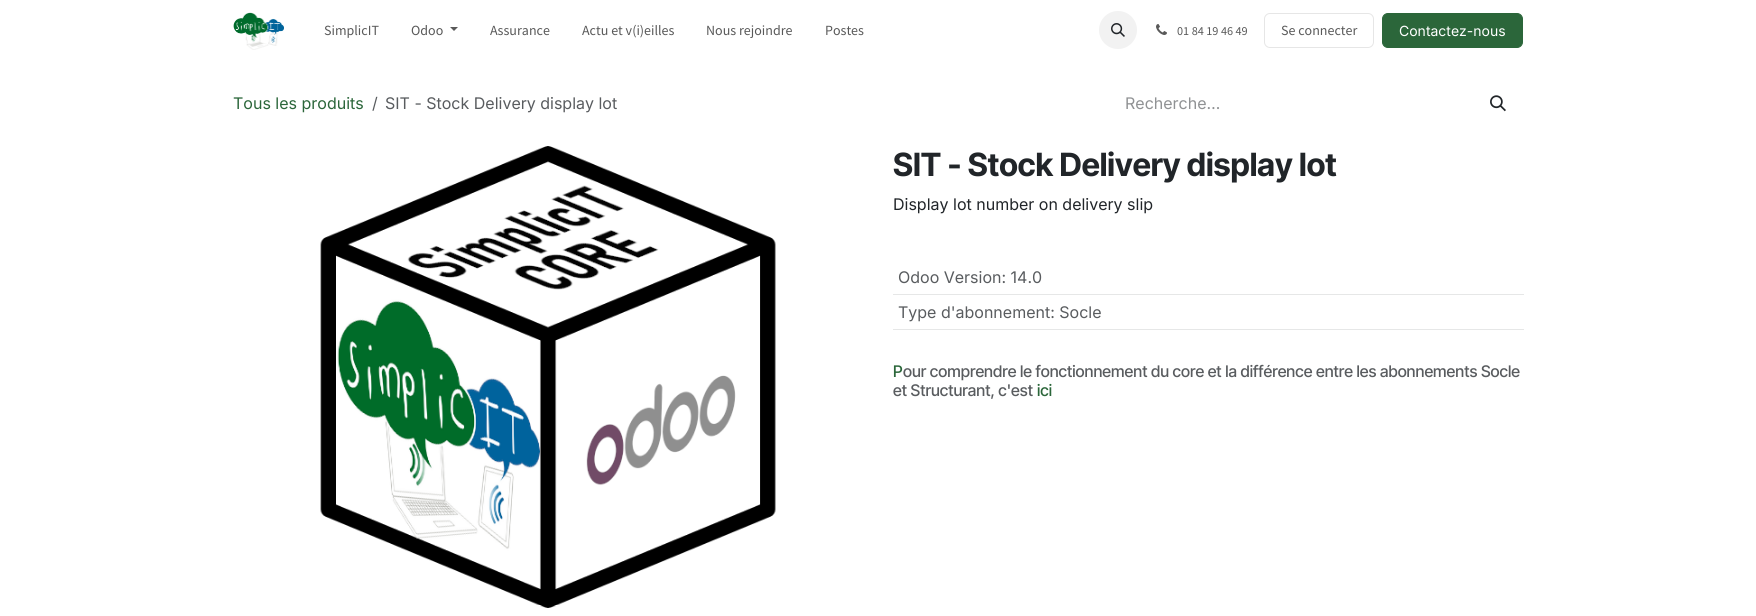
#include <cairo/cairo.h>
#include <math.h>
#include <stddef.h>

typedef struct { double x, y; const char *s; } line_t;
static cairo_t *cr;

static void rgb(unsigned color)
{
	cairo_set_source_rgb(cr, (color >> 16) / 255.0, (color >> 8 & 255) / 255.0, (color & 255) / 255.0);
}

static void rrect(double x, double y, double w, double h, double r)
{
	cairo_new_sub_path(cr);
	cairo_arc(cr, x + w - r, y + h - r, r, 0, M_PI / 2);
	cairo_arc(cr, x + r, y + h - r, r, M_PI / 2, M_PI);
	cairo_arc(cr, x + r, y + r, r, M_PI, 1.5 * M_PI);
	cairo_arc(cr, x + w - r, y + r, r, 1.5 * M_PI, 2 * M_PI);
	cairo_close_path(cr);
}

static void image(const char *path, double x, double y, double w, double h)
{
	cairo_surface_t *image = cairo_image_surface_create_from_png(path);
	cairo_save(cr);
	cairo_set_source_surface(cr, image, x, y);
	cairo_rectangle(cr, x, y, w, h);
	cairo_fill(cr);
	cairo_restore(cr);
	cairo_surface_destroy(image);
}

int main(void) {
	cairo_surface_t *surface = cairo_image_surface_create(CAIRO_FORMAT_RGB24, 1756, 616);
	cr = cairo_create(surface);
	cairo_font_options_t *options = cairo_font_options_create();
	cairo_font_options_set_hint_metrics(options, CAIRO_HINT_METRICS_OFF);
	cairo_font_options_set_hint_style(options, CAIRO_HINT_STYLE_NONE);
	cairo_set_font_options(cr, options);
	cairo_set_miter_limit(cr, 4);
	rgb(0xffffff);
	cairo_paint(cr);
	image("img/1.png", 233, 12, 51, 38);
	rgb(0x595959);
	cairo_new_path(cr);
	cairo_move_to(cr, 450, 27);
	cairo_line_to(cr, 458, 27);
	cairo_line_to(cr, 454, 31);
	cairo_close_path(cr);
	cairo_fill(cr);
	rgb(0xf2f2f2);
	cairo_arc(cr, 1118, 30, 19, 0, 2 * M_PI);
	cairo_fill(cr);
	image("img/2.png", 1111, 23, 14, 14);
	image("img/3.png", 1156, 24, 11, 11);
	rrect(1264.5, 13.5, 109, 34, 5.5);
	rgb(0xe6e6e6);
	cairo_set_line_width(cr, 1);
	cairo_stroke(cr);
	rgb(0x2b663a);
	rrect(1382.5, 13.5, 140, 34, 5.5);
	cairo_fill_preserve(cr);
	cairo_stroke(cr);
	image("img/4.png", 1490, 95, 16, 17);
	image("img/5.png", 320, 146, 456, 462);
	rgb(0xe6e7e7);
	cairo_rectangle(cr, 893, 294, 631, 1);
	cairo_fill(cr);
	cairo_rectangle(cr, 893, 329, 631, 1);
	cairo_fill(cr);
	cairo_select_font_face(cr, "Source Sans Pro", CAIRO_FONT_SLANT_NORMAL, CAIRO_FONT_WEIGHT_NORMAL);
	cairo_set_font_size(cr, 14);
	rgb(0x595959);
	{
		static const line_t items[] = {
			{324, 35, "SimplicIT"},
			{411, 35, "Odoo"},
			{490, 35, "Assurance"},
			{582, 35, "Actu et v(i)eilles"},
			{706, 35, "Nous rejoindre"},
			{825, 35, "Postes"},
		};
		for (size_t i = 0; i < sizeof items / sizeof *items; i++) {
			cairo_move_to(cr, items[i].x, items[i].y);
			cairo_show_text(cr, items[i].s);
		}
	}
	cairo_set_font_size(cr, 12.25);
	cairo_move_to(cr, 1177, 35);
	cairo_show_text(cr, "01 84 19 46 49");
	cairo_set_font_size(cr, 14);
	cairo_move_to(cr, 1281, 35);
	cairo_show_text(cr, "Se connecter");
	cairo_select_font_face(cr, "Inter", CAIRO_FONT_SLANT_NORMAL, CAIRO_FONT_WEIGHT_NORMAL);
	rgb(0xffffff);
	cairo_move_to(cr, 1399, 36);
	cairo_show_text(cr, "Contactez-nous");
	cairo_set_font_size(cr, 16);
	rgb(0x2b663a);
	cairo_move_to(cr, 233, 109);
	cairo_show_text(cr, "Tous les produits");
	rgb(0x595c5f);
	cairo_move_to(cr, 372, 109);
	cairo_show_text(cr, "/");
	cairo_move_to(cr, 385, 109);
	cairo_show_text(cr, "SIT - Stock Delivery display lot");
	rgb(0x909294);
	cairo_move_to(cr, 1125, 109);
	cairo_show_text(cr, "Recherche…");
	cairo_select_font_face(cr, "Inter Tight", CAIRO_FONT_SLANT_NORMAL, CAIRO_FONT_WEIGHT_BOLD);
	cairo_set_font_size(cr, 32);
	rgb(0x212529);
	cairo_move_to(cr, 893, 176);
	cairo_show_text(cr, "SIT - Stock Delivery display lot");
	cairo_select_font_face(cr, "Inter", CAIRO_FONT_SLANT_NORMAL, CAIRO_FONT_WEIGHT_NORMAL);
	cairo_set_font_size(cr, 16);
	cairo_move_to(cr, 893, 210);
	cairo_show_text(cr, "Display lot number on delivery slip");
	rgb(0x595c5f);
	cairo_move_to(cr, 898, 283);
	cairo_show_text(cr, "Odoo Version: 14.0");
	cairo_move_to(cr, 898, 318);
	cairo_show_text(cr, "Type d'abonnement: Socle");
	cairo_select_font_face(cr, "Inter Tight Medium", CAIRO_FONT_SLANT_NORMAL, CAIRO_FONT_WEIGHT_NORMAL);
	rgb(0x2b663a);
	cairo_move_to(cr, 893, 377);
	cairo_show_text(cr, "P");
	rgb(0x595c5f);
	cairo_move_to(cr, 903, 377);
	cairo_show_text(cr, "our comprendre le fonctionnement du core et la différence entre les abonnements Socle");
	cairo_move_to(cr, 893, 396);
	cairo_show_text(cr, "et Structurant, c'est");
	rgb(0x2b663a);
	cairo_move_to(cr, 1037, 396);
	cairo_show_text(cr, "ici");
	cairo_surface_write_to_png(surface, "page.png");
	cairo_font_options_destroy(options);
	cairo_destroy(cr);
	cairo_surface_destroy(surface);
	return 0;
}
